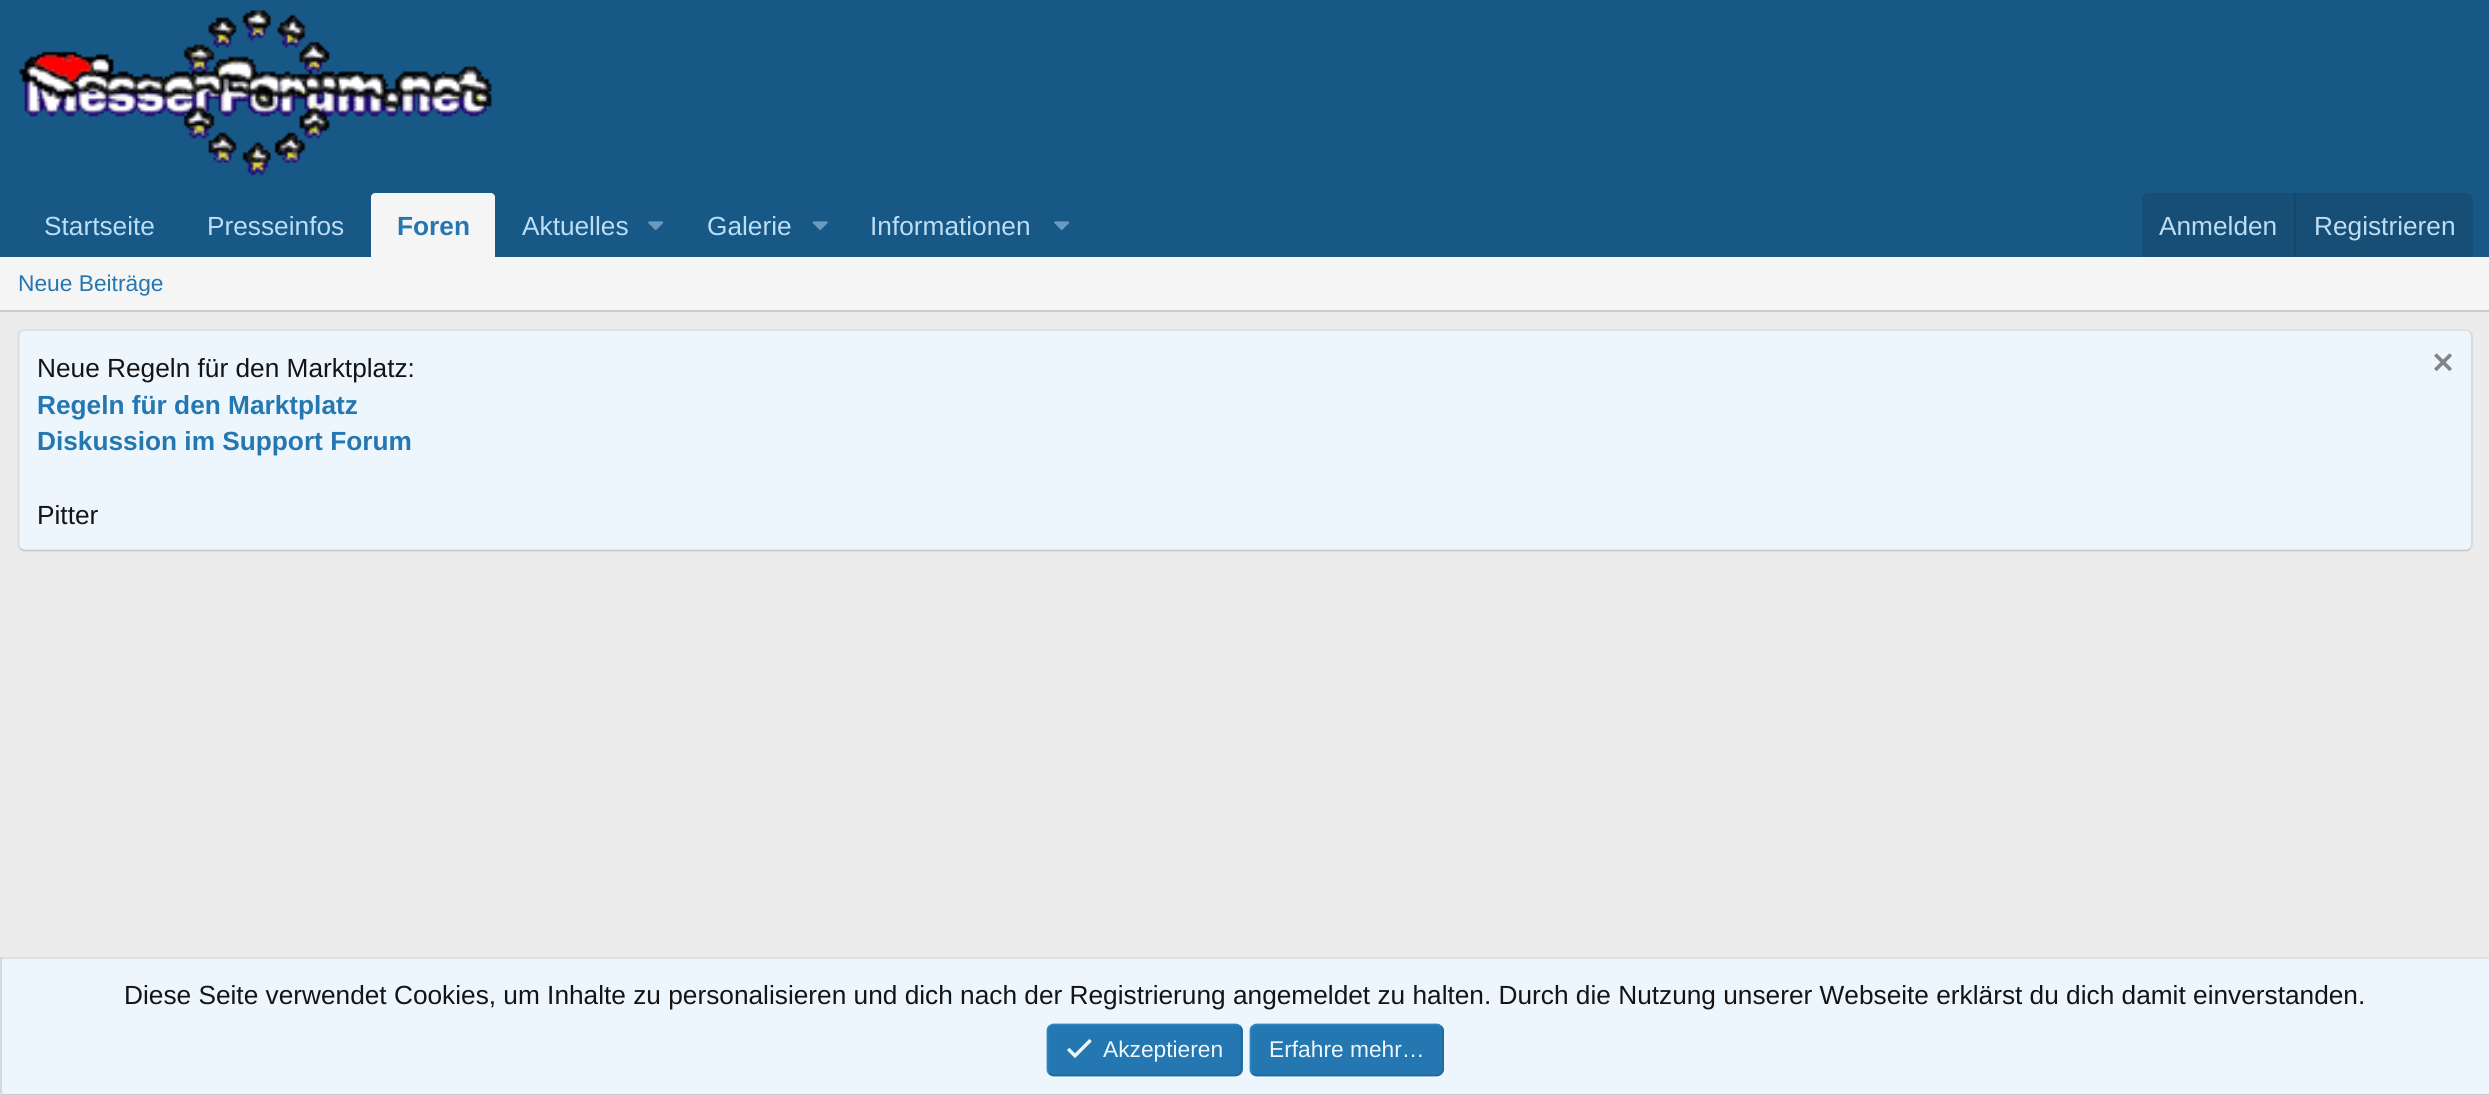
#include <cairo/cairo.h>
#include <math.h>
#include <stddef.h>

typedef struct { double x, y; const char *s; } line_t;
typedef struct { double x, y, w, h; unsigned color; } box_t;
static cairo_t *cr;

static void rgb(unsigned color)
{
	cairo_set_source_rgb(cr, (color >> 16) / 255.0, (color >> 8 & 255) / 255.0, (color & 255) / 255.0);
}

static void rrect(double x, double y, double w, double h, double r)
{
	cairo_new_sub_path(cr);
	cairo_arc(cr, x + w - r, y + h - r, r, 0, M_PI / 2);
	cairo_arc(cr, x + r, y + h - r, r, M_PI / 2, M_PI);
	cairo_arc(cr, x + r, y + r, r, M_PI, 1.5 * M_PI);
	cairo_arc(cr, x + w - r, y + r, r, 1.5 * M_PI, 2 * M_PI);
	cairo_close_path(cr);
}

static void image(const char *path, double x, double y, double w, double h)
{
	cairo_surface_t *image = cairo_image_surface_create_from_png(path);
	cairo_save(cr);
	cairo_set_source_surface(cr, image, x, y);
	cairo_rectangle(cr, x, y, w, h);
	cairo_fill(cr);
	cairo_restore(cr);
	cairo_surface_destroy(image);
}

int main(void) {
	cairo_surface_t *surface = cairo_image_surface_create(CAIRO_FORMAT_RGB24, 2489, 1095);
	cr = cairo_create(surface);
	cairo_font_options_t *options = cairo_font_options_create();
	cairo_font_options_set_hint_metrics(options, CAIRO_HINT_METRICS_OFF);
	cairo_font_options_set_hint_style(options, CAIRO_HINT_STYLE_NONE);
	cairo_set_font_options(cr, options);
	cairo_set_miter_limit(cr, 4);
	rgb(0xececec);
	cairo_paint(cr);
	rgb(0x185886);
	cairo_rectangle(cr, 0, 0, 2489, 257);
	cairo_fill(cr);
	image("img/1.png", 19, 10, 473, 166);
	rgb(0xf5f5f5);
	cairo_new_path(cr);
	cairo_move_to(cr, 375, 193);
	cairo_line_to(cr, 491, 193);
	cairo_curve_to(cr, 493, 193, 495, 195, 495, 197);
	cairo_line_to(cr, 495, 257);
	cairo_line_to(cr, 371, 257);
	cairo_line_to(cr, 371, 197);
	cairo_curve_to(cr, 371, 195, 373, 193, 375, 193);
	cairo_close_path(cr);
	cairo_fill(cr);
	image("img/2.png", 648, 221, 16, 9);
	image("img/3.png", 812, 221, 16, 9);
	image("img/2.png", 1054, 221, 16, 9);
	rgb(0x174e75);
	cairo_new_path(cr);
	cairo_move_to(cr, 2149, 193);
	cairo_line_to(cr, 2466, 193);
	cairo_curve_to(cr, 2470, 193, 2473, 196, 2473, 200);
	cairo_line_to(cr, 2473, 257);
	cairo_line_to(cr, 2142, 257);
	cairo_line_to(cr, 2142, 200);
	cairo_curve_to(cr, 2142, 196, 2145, 193, 2149, 193);
	cairo_close_path(cr);
	cairo_fill(cr);
	{
		static const box_t items[] = {
			{2294, 193, 2, 64, 0x174566},
			{0, 257, 2489, 53, 0xf5f5f5},
			{0, 310, 2489, 2, 0xcbcbcb},
		};
		for (size_t i = 0; i < sizeof items / sizeof *items; i++) {
			rgb(items[i].color);
			cairo_rectangle(cr, items[i].x, items[i].y, items[i].w, items[i].h);
			cairo_fill(cr);
		}
	}
	rgb(0xedf6fd);
	rrect(18, 329, 2455, 222, 7);
	cairo_fill(cr);
	cairo_new_path(cr);
	cairo_move_to(cr, 20, 331.5);
	cairo_curve_to(cr, 21.5, 330.5, 23, 330, 24.5, 330);
	cairo_line_to(cr, 2466, 330);
	cairo_curve_to(cr, 2467.5, 330, 2469, 330.5, 2470, 331.5);
	rgb(0xdfdfdf);
	cairo_set_line_width(cr, 1.8);
	cairo_stroke(cr);
	cairo_new_path(cr);
	cairo_move_to(cr, 2470, 331.5);
	cairo_curve_to(cr, 2471, 333, 2472, 334.5, 2472, 336);
	cairo_line_to(cr, 2472, 544);
	cairo_curve_to(cr, 2472, 546, 2471, 547.5, 2470, 548.5);
	rgb(0xd8d8d8);
	cairo_stroke(cr);
	cairo_new_path(cr);
	cairo_move_to(cr, 2470, 548.5);
	cairo_curve_to(cr, 2469, 549.5, 2467.5, 550.5, 2466, 550.5);
	cairo_line_to(cr, 24.5, 550.5);
	cairo_curve_to(cr, 23, 550.5, 21.5, 549.5, 20, 548.5);
	rgb(0xcbcbcb);
	cairo_stroke(cr);
	cairo_new_path(cr);
	cairo_move_to(cr, 20, 548.5);
	cairo_curve_to(cr, 19, 547.5, 18.5, 546, 18.5, 544);
	cairo_line_to(cr, 18.5, 336);
	cairo_curve_to(cr, 18.5, 334.5, 19, 333, 20, 331.5);
	rgb(0xd8d8d8);
	cairo_stroke(cr);
	image("img/4.png", 2434, 353, 18, 18);
	{
		static const box_t items[] = {
			{2, 959, 2487, 135, 0xedf6fd},
			{0, 957, 2489, 2, 0xdfdfdf},
			{0, 1094, 2489, 1, 0xcbcbcb},
			{0, 957, 2, 138, 0xd8d8d8},
		};
		for (size_t i = 0; i < sizeof items / sizeof *items; i++) {
			rgb(items[i].color);
			cairo_rectangle(cr, items[i].x, items[i].y, items[i].w, items[i].h);
			cairo_fill(cr);
		}
	}
	rgb(0x2577b1);
	rrect(1047, 1024, 196, 52, 7);
	cairo_fill(cr);
	cairo_new_path(cr);
	cairo_move_to(cr, 1240, 1026.5);
	cairo_curve_to(cr, 1241, 1027.5, 1241.5, 1029, 1241.5, 1031);
	cairo_line_to(cr, 1241.5, 1069);
	cairo_curve_to(cr, 1241.5, 1071, 1241, 1072.5, 1240, 1073.5);
	cairo_curve_to(cr, 1238.5, 1074.5, 1237, 1075.5, 1235.5, 1075.5);
	cairo_line_to(cr, 1053.5, 1075.5);
	cairo_curve_to(cr, 1052, 1075.5, 1050.5, 1074.5, 1049, 1073.5);
	rgb(0x21699c);
	cairo_stroke(cr);
	cairo_new_path(cr);
	cairo_move_to(cr, 1049, 1073.5);
	cairo_curve_to(cr, 1048, 1072.5, 1047.5, 1071, 1047.5, 1069);
	cairo_line_to(cr, 1047.5, 1031);
	cairo_curve_to(cr, 1047.5, 1029, 1048, 1027.5, 1049, 1026.5);
	cairo_curve_to(cr, 1050.5, 1025.5, 1052, 1024.5, 1053.5, 1024.5);
	cairo_line_to(cr, 1235.5, 1024.5);
	cairo_curve_to(cr, 1237, 1024.5, 1238.5, 1025.5, 1240, 1026.5);
	rgb(0x2985c6);
	cairo_stroke(cr);
	image("img/5.png", 1067, 1039, 25, 19);
	rgb(0x2577b1);
	rrect(1250, 1024, 194, 52, 7);
	cairo_fill(cr);
	cairo_new_path(cr);
	cairo_move_to(cr, 1441, 1026.5);
	cairo_curve_to(cr, 1442, 1027.5, 1443, 1029, 1443, 1031);
	cairo_line_to(cr, 1443, 1069);
	cairo_curve_to(cr, 1443, 1071, 1442, 1072.5, 1441, 1073.5);
	cairo_curve_to(cr, 1440, 1074.5, 1438.5, 1075.5, 1437, 1075.5);
	cairo_line_to(cr, 1256.5, 1075.5);
	cairo_curve_to(cr, 1255, 1075.5, 1253.5, 1074.5, 1252, 1073.5);
	rgb(0x21699c);
	cairo_stroke(cr);
	cairo_new_path(cr);
	cairo_move_to(cr, 1252, 1073.5);
	cairo_curve_to(cr, 1251, 1072.5, 1250.5, 1071, 1250.5, 1069);
	cairo_line_to(cr, 1250.5, 1031);
	cairo_curve_to(cr, 1250.5, 1029, 1251, 1027.5, 1252, 1026.5);
	cairo_curve_to(cr, 1253.5, 1025.5, 1255, 1024.5, 1256.5, 1024.5);
	cairo_line_to(cr, 1437, 1024.5);
	cairo_curve_to(cr, 1438.5, 1024.5, 1440, 1025.5, 1441, 1026.5);
	rgb(0x2985c6);
	cairo_stroke(cr);
	cairo_select_font_face(cr, "Liberation Sans", CAIRO_FONT_SLANT_NORMAL, CAIRO_FONT_WEIGHT_NORMAL);
	cairo_set_font_size(cr, 26.25);
	rgb(0xbcdef5);
	cairo_move_to(cr, 44, 235);
	cairo_show_text(cr, "Startseite");
	cairo_move_to(cr, 207, 235);
	cairo_show_text(cr, "Presseinfos");
	cairo_select_font_face(cr, "Liberation Sans", CAIRO_FONT_SLANT_NORMAL, CAIRO_FONT_WEIGHT_BOLD);
	rgb(0x2577b1);
	cairo_move_to(cr, 397, 235);
	cairo_show_text(cr, "Foren");
	cairo_select_font_face(cr, "Liberation Sans", CAIRO_FONT_SLANT_NORMAL, CAIRO_FONT_WEIGHT_NORMAL);
	rgb(0xbcdef5);
	{
		static const line_t items[] = {
			{522, 235, "Aktuelles"},
			{707, 235, "Galerie"},
			{870, 235, "Informationen"},
			{2159, 235, "Anmelden"},
			{2314, 235, "Registrieren"},
		};
		for (size_t i = 0; i < sizeof items / sizeof *items; i++) {
			cairo_move_to(cr, items[i].x, items[i].y);
			cairo_show_text(cr, items[i].s);
		}
	}
	cairo_set_font_size(cr, 22.75);
	rgb(0x2577b1);
	cairo_move_to(cr, 18, 291);
	cairo_show_text(cr, "Neue Beiträge");
	cairo_set_font_size(cr, 26.25);
	rgb(0x141414);
	cairo_move_to(cr, 37, 377);
	cairo_show_text(cr, "Neue Regeln für den Marktplatz:");
	cairo_select_font_face(cr, "Liberation Sans", CAIRO_FONT_SLANT_NORMAL, CAIRO_FONT_WEIGHT_BOLD);
	rgb(0x2577b1);
	cairo_move_to(cr, 37, 414);
	cairo_show_text(cr, "Regeln für den Marktplatz");
	cairo_move_to(cr, 37, 450);
	cairo_show_text(cr, "Diskussion im Support Forum");
	cairo_select_font_face(cr, "Liberation Sans", CAIRO_FONT_SLANT_NORMAL, CAIRO_FONT_WEIGHT_NORMAL);
	rgb(0x141414);
	cairo_move_to(cr, 37, 524);
	cairo_show_text(cr, "Pitter");
	cairo_move_to(cr, 124, 1004);
	cairo_show_text(cr, "Diese Seite verwendet Cookies, um Inhalte zu personalisieren und dich nach der Registrierung angemeldet zu halten. Durch die Nutzung unserer Webseite erklärst du dich damit einverstanden.");
	cairo_set_font_size(cr, 22.75);
	rgb(0xedf6fd);
	cairo_move_to(cr, 1103, 1057);
	cairo_show_text(cr, "Akzeptieren");
	cairo_move_to(cr, 1269, 1057);
	cairo_show_text(cr, "Erfahre mehr…");
	cairo_surface_write_to_png(surface, "page.png");
	cairo_font_options_destroy(options);
	cairo_destroy(cr);
	cairo_surface_destroy(surface);
	return 0;
}
